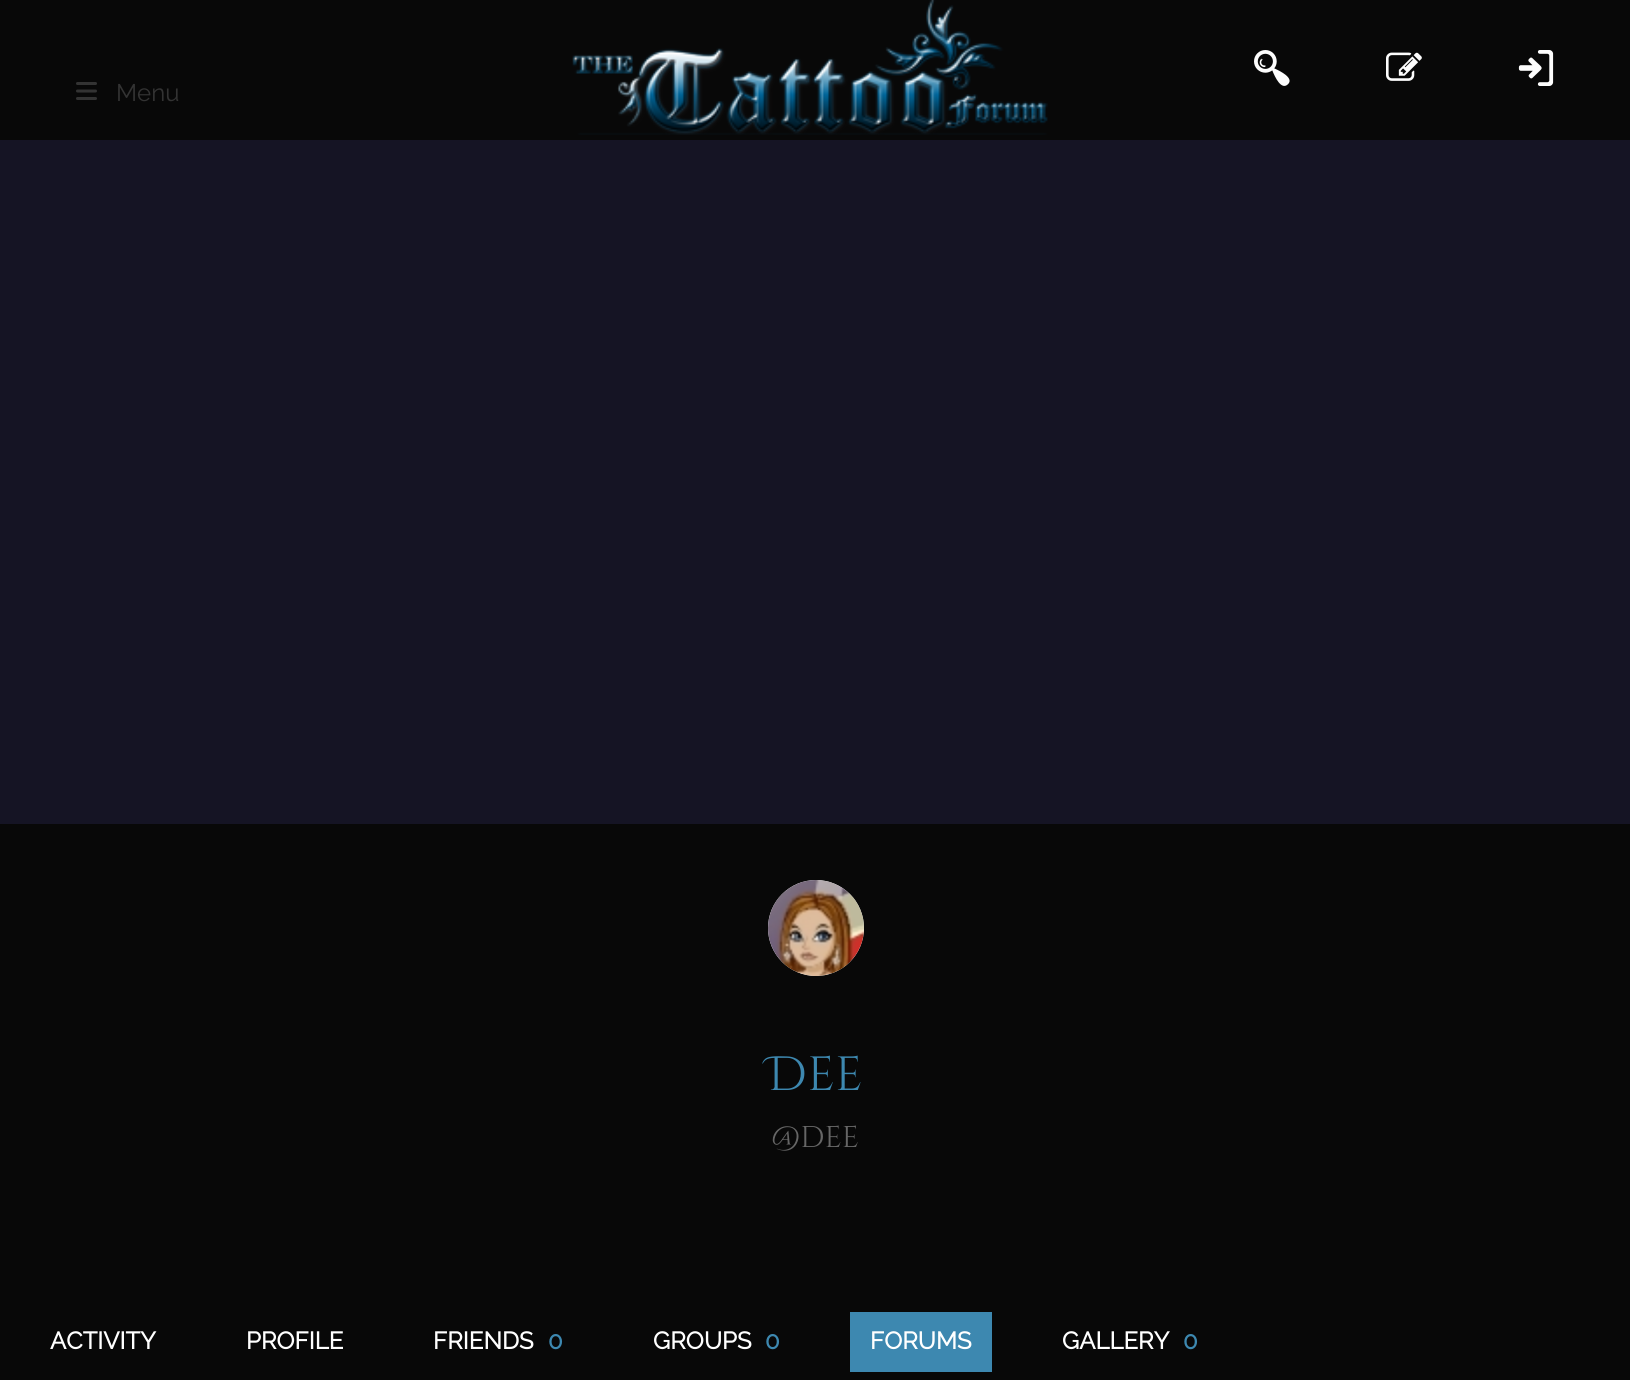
#include <cairo/cairo.h>
#include <math.h>
#include <stddef.h>

typedef struct { double x, y; const char *s; } line_t;
static cairo_t *cr;

static void rgb(unsigned color)
{
	cairo_set_source_rgb(cr, (color >> 16) / 255.0, (color >> 8 & 255) / 255.0, (color & 255) / 255.0);
}

static void image(const char *path, double x, double y, double w, double h)
{
	cairo_surface_t *image = cairo_image_surface_create_from_png(path);
	cairo_save(cr);
	cairo_set_source_surface(cr, image, x, y);
	cairo_rectangle(cr, x, y, w, h);
	cairo_fill(cr);
	cairo_restore(cr);
	cairo_surface_destroy(image);
}

int main(void) {
	cairo_surface_t *surface = cairo_image_surface_create(CAIRO_FORMAT_RGB24, 1630, 1380);
	cr = cairo_create(surface);
	cairo_font_options_t *options = cairo_font_options_create();
	cairo_font_options_set_hint_metrics(options, CAIRO_HINT_METRICS_OFF);
	cairo_font_options_set_hint_style(options, CAIRO_HINT_STYLE_NONE);
	cairo_set_font_options(cr, options);
	cairo_set_miter_limit(cr, 4);
	rgb(0x080808);
	cairo_paint(cr);
	image("img/1.png", 572, 0, 476, 135);
	image("img/2.png", 1254, 50, 36, 36);
	image("img/3.png", 1386, 52, 36, 29);
	image("img/4.png", 1518, 50, 36, 36);
	image("img/5.png", 76, 82, 21, 18);
	rgb(0x151424);
	cairo_rectangle(cr, 0, 140, 1630, 684);
	cairo_fill(cr);
	rgb(0xeeeeee);
	cairo_arc(cr, 816, 928, 48, 0, 2 * M_PI);
	cairo_fill(cr);
	image("img/6.png", 768, 880, 96, 96);
	rgb(0x3d88b0);
	cairo_rectangle(cr, 850, 1312, 142, 60);
	cairo_fill(cr);
	cairo_select_font_face(cr, "Raleway Thin", CAIRO_FONT_SLANT_NORMAL, CAIRO_FONT_WEIGHT_NORMAL);
	cairo_set_font_size(cr, 24);
	rgb(0x333333);
	cairo_move_to(cr, 116, 101);
	cairo_show_text(cr, "Menu");
	cairo_select_font_face(cr, "Cinzel Decorative", CAIRO_FONT_SLANT_NORMAL, CAIRO_FONT_WEIGHT_NORMAL);
	cairo_set_font_size(cr, 48);
	rgb(0x3d88b0);
	cairo_move_to(cr, 767, 1090);
	cairo_show_text(cr, "Dee");
	cairo_set_font_size(cr, 30);
	rgb(0x666666);
	cairo_move_to(cr, 771, 1147);
	cairo_show_text(cr, "@dee");
	cairo_select_font_face(cr, "Raleway", CAIRO_FONT_SLANT_NORMAL, CAIRO_FONT_WEIGHT_BOLD);
	cairo_set_font_size(cr, 24);
	rgb(0xffffff);
	{
		static const line_t items[] = {
			{50, 1349, "ACTIVITY"},
			{246, 1349, "PROFILE"},
			{433, 1349, "FRIENDS"},
		};
		for (size_t i = 0; i < sizeof items / sizeof *items; i++) {
			cairo_move_to(cr, items[i].x, items[i].y);
			cairo_show_text(cr, items[i].s);
		}
	}
	rgb(0x3d88b0);
	cairo_move_to(cr, 548, 1349);
	cairo_show_text(cr, "0");
	rgb(0xffffff);
	cairo_move_to(cr, 653, 1349);
	cairo_show_text(cr, "GROUPS");
	rgb(0x3d88b0);
	cairo_move_to(cr, 765, 1349);
	cairo_show_text(cr, "0");
	rgb(0xffffff);
	cairo_move_to(cr, 870, 1349);
	cairo_show_text(cr, "FORUMS");
	cairo_move_to(cr, 1062, 1349);
	cairo_show_text(cr, "GALLERY");
	rgb(0x3d88b0);
	cairo_move_to(cr, 1183, 1349);
	cairo_show_text(cr, "0");
	cairo_surface_write_to_png(surface, "page.png");
	cairo_font_options_destroy(options);
	cairo_destroy(cr);
	cairo_surface_destroy(surface);
	return 0;
}
